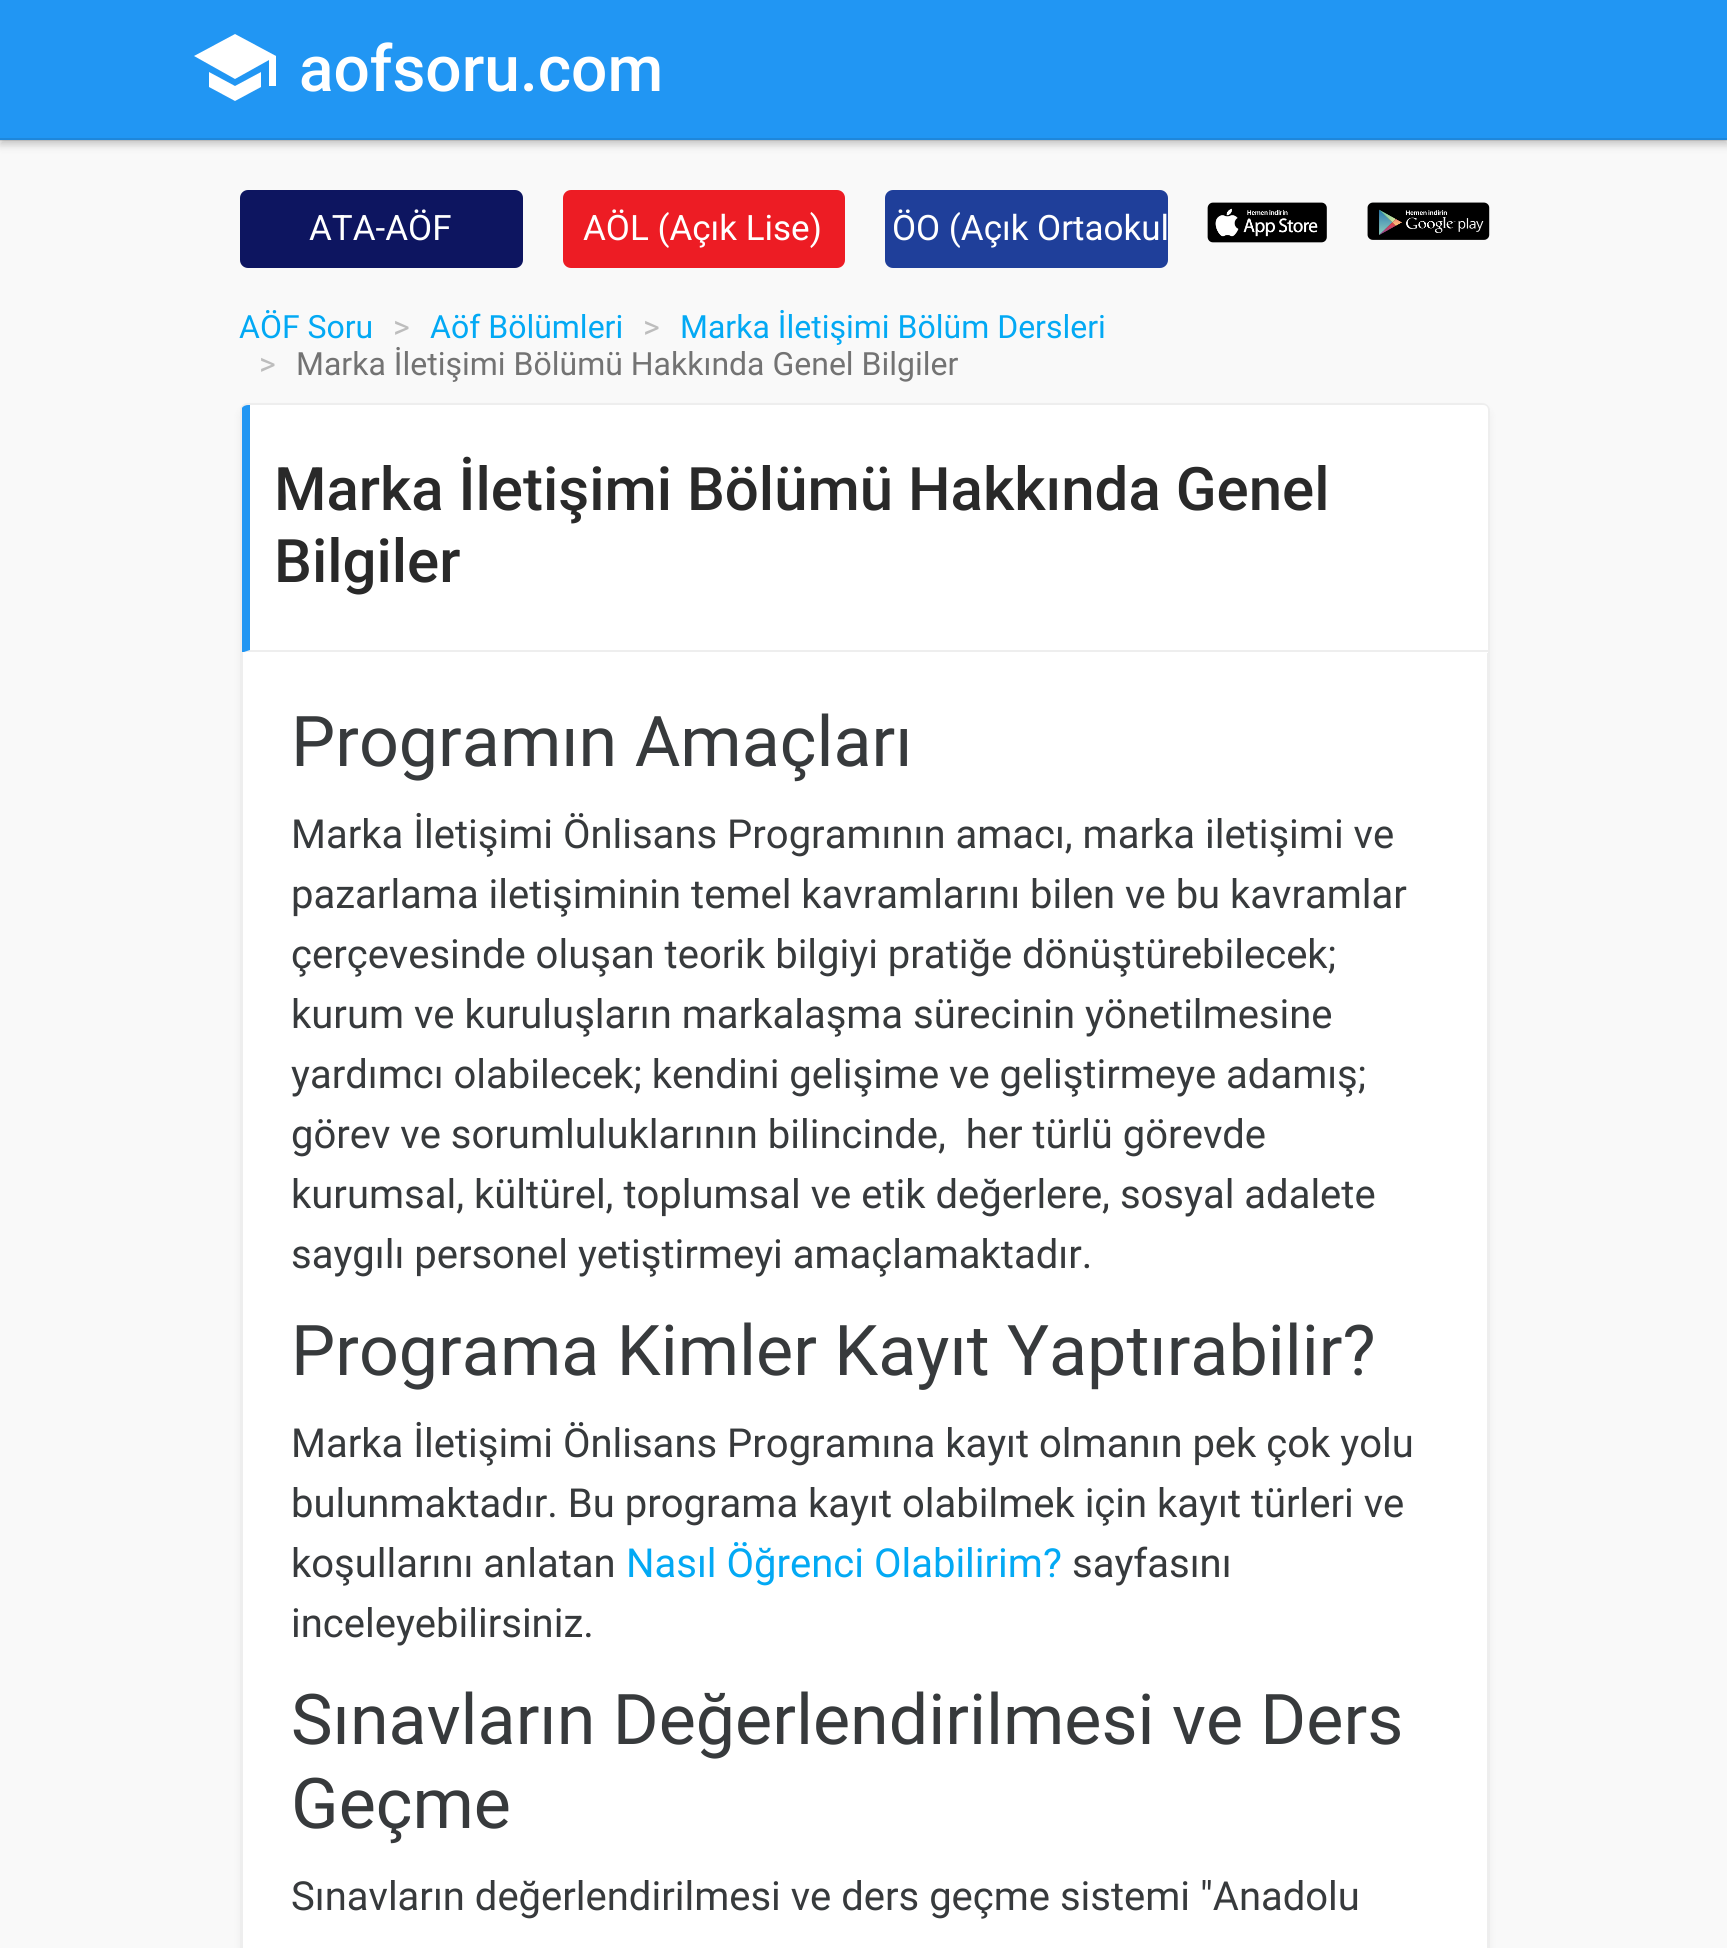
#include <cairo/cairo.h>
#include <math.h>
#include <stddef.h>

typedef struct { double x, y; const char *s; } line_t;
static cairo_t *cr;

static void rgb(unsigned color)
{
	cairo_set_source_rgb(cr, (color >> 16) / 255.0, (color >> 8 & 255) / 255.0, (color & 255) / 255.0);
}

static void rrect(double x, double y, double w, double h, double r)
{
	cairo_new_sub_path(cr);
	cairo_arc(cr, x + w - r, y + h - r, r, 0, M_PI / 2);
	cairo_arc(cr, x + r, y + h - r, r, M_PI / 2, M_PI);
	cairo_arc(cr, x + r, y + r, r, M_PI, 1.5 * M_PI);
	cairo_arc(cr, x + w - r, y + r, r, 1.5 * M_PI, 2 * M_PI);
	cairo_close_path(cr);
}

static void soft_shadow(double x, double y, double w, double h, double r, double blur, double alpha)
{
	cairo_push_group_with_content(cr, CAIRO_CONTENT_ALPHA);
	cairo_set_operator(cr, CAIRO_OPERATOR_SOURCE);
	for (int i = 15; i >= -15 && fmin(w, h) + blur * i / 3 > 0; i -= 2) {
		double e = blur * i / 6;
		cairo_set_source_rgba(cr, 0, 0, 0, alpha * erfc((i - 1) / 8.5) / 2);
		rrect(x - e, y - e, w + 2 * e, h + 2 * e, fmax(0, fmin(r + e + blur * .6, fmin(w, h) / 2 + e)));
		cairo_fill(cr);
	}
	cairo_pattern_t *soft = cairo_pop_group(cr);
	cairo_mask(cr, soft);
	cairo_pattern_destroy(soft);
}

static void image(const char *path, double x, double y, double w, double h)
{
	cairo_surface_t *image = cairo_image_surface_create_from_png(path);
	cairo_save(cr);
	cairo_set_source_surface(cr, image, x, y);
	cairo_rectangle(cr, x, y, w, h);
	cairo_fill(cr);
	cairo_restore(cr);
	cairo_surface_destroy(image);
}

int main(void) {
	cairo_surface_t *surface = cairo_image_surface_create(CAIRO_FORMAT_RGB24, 1727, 1948);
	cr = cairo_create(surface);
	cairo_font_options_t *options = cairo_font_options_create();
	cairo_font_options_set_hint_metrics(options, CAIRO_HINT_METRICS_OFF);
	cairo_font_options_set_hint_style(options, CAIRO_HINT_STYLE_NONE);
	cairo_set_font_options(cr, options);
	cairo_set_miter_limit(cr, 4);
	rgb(0xf9f9f9);
	cairo_paint(cr);
	rgb(0x000000);
	soft_shadow(0, 5, 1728, 140, 0, 4, 0.2);
	rgb(0x2196f3);
	cairo_rectangle(cr, 0, 0, 1727, 140);
	cairo_fill(cr);
	cairo_set_source_rgba(cr, 0, 0, 0, 0.1);
	cairo_rectangle(cr, 0, 138, 1727, 3);
	cairo_fill(cr);
	rgb(0xffffff);
	cairo_new_path(cr);
	cairo_move_to(cr, 235, 34);
	cairo_line_to(cr, 276, 56);
	cairo_line_to(cr, 276, 86);
	cairo_line_to(cr, 269, 86);
	cairo_line_to(cr, 269, 60);
	cairo_line_to(cr, 235, 79);
	cairo_line_to(cr, 194, 56);
	cairo_close_path(cr);
	cairo_move_to(cr, 209, 72);
	cairo_line_to(cr, 235, 86);
	cairo_line_to(cr, 261, 72);
	cairo_line_to(cr, 261, 87);
	cairo_line_to(cr, 235, 101);
	cairo_line_to(cr, 209, 87);
	cairo_close_path(cr);
	cairo_fill(cr);
	rgb(0x0d1560);
	rrect(240, 190, 283, 78, 8);
	cairo_fill(cr);
	rgb(0xed1c24);
	rrect(563, 190, 282, 78, 8);
	cairo_fill(cr);
	rgb(0x1f3f9a);
	rrect(885, 190, 283, 78, 8);
	cairo_fill(cr);
	image("img/1.png", 1207, 202, 120, 41);
	image("img/2.png", 1367, 202, 123, 38);
	rgb(0x000000);
	soft_shadow(240, 408, 1250, 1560, 8, 4, 0.05);
	rgb(0xffffff);
	rrect(241.5, 404.5, 1247, 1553, 6.5);
	cairo_fill_preserve(cr);
	rgb(0xeeeeee);
	cairo_set_line_width(cr, 3);
	cairo_stroke(cr);
	rgb(0xffffff);
	cairo_new_path(cr);
	cairo_move_to(cr, 248, 405);
	cairo_line_to(cr, 1483, 405);
	cairo_curve_to(cr, 1486, 405, 1488, 407, 1488, 410);
	cairo_line_to(cr, 1488, 653);
	cairo_line_to(cr, 243, 653);
	cairo_line_to(cr, 243, 410);
	cairo_curve_to(cr, 243, 407, 245, 405, 248, 405);
	cairo_close_path(cr);
	cairo_fill(cr);
	rgb(0xeeeeee);
	cairo_new_path(cr);
	cairo_move_to(cr, 1488, 652);
	cairo_line_to(cr, 244, 652);
	cairo_line_to(cr, 250, 650);
	cairo_line_to(cr, 1488, 650);
	cairo_close_path(cr);
	cairo_fill(cr);
	rgb(0x2196f3);
	cairo_new_path(cr);
	cairo_move_to(cr, 248, 405);
	cairo_line_to(cr, 250, 405);
	cairo_line_to(cr, 250, 650);
	cairo_line_to(cr, 244, 652);
	cairo_line_to(cr, 242, 652);
	cairo_line_to(cr, 242, 408);
	cairo_curve_to(cr, 243, 406, 246, 405, 248, 405);
	cairo_close_path(cr);
	cairo_fill(cr);
	cairo_select_font_face(cr, "Roboto Medium", CAIRO_FONT_SLANT_NORMAL, CAIRO_FONT_WEIGHT_NORMAL);
	cairo_set_font_size(cr, 64);
	rgb(0xffffff);
	cairo_move_to(cr, 299, 91);
	cairo_show_text(cr, "aofsoru.com");
	cairo_select_font_face(cr, "Roboto", CAIRO_FONT_SLANT_NORMAL, CAIRO_FONT_WEIGHT_NORMAL);
	cairo_set_font_size(cr, 35);
	{
		static const line_t items[] = {
			{309, 240, "ATA-AÖF"},
			{583, 240, "AÖL (Açık Lise)"},
			{892, 240, "ÖO (Açık Ortaokul"},
		};
		for (size_t i = 0; i < sizeof items / sizeof *items; i++) {
			cairo_move_to(cr, items[i].x, items[i].y);
			cairo_show_text(cr, items[i].s);
		}
	}
	cairo_set_font_size(cr, 32);
	rgb(0x03a9f4);
	cairo_move_to(cr, 239, 338);
	cairo_show_text(cr, "AÖF Soru");
	rgb(0xbdbdbd);
	cairo_move_to(cr, 393, 338);
	cairo_show_text(cr, ">");
	rgb(0x03a9f4);
	cairo_move_to(cr, 430, 338);
	cairo_show_text(cr, "Aöf Bölümleri");
	rgb(0xbdbdbd);
	cairo_move_to(cr, 643, 338);
	cairo_show_text(cr, ">");
	rgb(0x03a9f4);
	cairo_move_to(cr, 680, 338);
	cairo_show_text(cr, "Marka İletişimi Bölüm Dersleri");
	rgb(0xbdbdbd);
	cairo_move_to(cr, 259, 375);
	cairo_show_text(cr, ">");
	rgb(0x737373);
	cairo_move_to(cr, 296, 375);
	cairo_show_text(cr, "Marka İletişimi Bölümü Hakkında Genel Bilgiler");
	cairo_select_font_face(cr, "Roboto Medium", CAIRO_FONT_SLANT_NORMAL, CAIRO_FONT_WEIGHT_NORMAL);
	cairo_set_font_size(cr, 60);
	rgb(0x292929);
	cairo_move_to(cr, 274, 510);
	cairo_show_text(cr, "Marka İletişimi Bölümü Hakkında Genel");
	cairo_move_to(cr, 274, 582);
	cairo_show_text(cr, "Bilgiler");
	cairo_select_font_face(cr, "Roboto", CAIRO_FONT_SLANT_NORMAL, CAIRO_FONT_WEIGHT_NORMAL);
	cairo_set_font_size(cr, 70);
	rgb(0x373a3c);
	cairo_move_to(cr, 291, 766);
	cairo_show_text(cr, "Programın Amaçları");
	cairo_set_font_size(cr, 40);
	{
		static const line_t items[] = {
			{291, 848, "Marka İletişimi Önlisans Programının amacı, marka iletişimi ve"},
			{291, 908, "pazarlama iletişiminin temel kavramlarını bilen ve bu kavramlar"},
			{291, 968, "çerçevesinde oluşan teorik bilgiyi pratiğe dönüştürebilecek;"},
			{291, 1028, "kurum ve kuruluşların markalaşma sürecinin yönetilmesine"},
			{291, 1088, "yardımcı olabilecek; kendini gelişime ve geliştirmeye adamış;"},
			{291, 1148, "görev ve sorumluluklarının bilincinde,  her türlü görevde"},
			{291, 1208, "kurumsal, kültürel, toplumsal ve etik değerlere, sosyal adalete"},
			{291, 1268, "saygılı personel yetiştirmeyi amaçlamaktadır."},
		};
		for (size_t i = 0; i < sizeof items / sizeof *items; i++) {
			cairo_move_to(cr, items[i].x, items[i].y);
			cairo_show_text(cr, items[i].s);
		}
	}
	cairo_set_font_size(cr, 70);
	cairo_move_to(cr, 291, 1375);
	cairo_show_text(cr, "Programa Kimler Kayıt Yaptırabilir?");
	cairo_set_font_size(cr, 40);
	{
		static const line_t items[] = {
			{291, 1457, "Marka İletişimi Önlisans Programına kayıt olmanın pek çok yolu"},
			{291, 1517, "bulunmaktadır. Bu programa kayıt olabilmek için kayıt türleri ve"},
			{291, 1577, "koşullarını anlatan"},
		};
		for (size_t i = 0; i < sizeof items / sizeof *items; i++) {
			cairo_move_to(cr, items[i].x, items[i].y);
			cairo_show_text(cr, items[i].s);
		}
	}
	rgb(0x03a9f4);
	cairo_move_to(cr, 626, 1577);
	cairo_show_text(cr, "Nasıl Öğrenci Olabilirim?");
	rgb(0x373a3c);
	cairo_move_to(cr, 1072, 1577);
	cairo_show_text(cr, "sayfasını");
	cairo_move_to(cr, 291, 1637);
	cairo_show_text(cr, "inceleyebilirsiniz.");
	cairo_set_font_size(cr, 70);
	cairo_move_to(cr, 291, 1744);
	cairo_show_text(cr, "Sınavların Değerlendirilmesi ve Ders");
	cairo_move_to(cr, 291, 1828);
	cairo_show_text(cr, "Geçme");
	cairo_set_font_size(cr, 40);
	cairo_move_to(cr, 291, 1910);
	cairo_show_text(cr, "Sınavların değerlendirilmesi ve ders geçme sistemi \"Anadolu");
	cairo_surface_write_to_png(surface, "page.png");
	cairo_font_options_destroy(options);
	cairo_destroy(cr);
	cairo_surface_destroy(surface);
	return 0;
}
